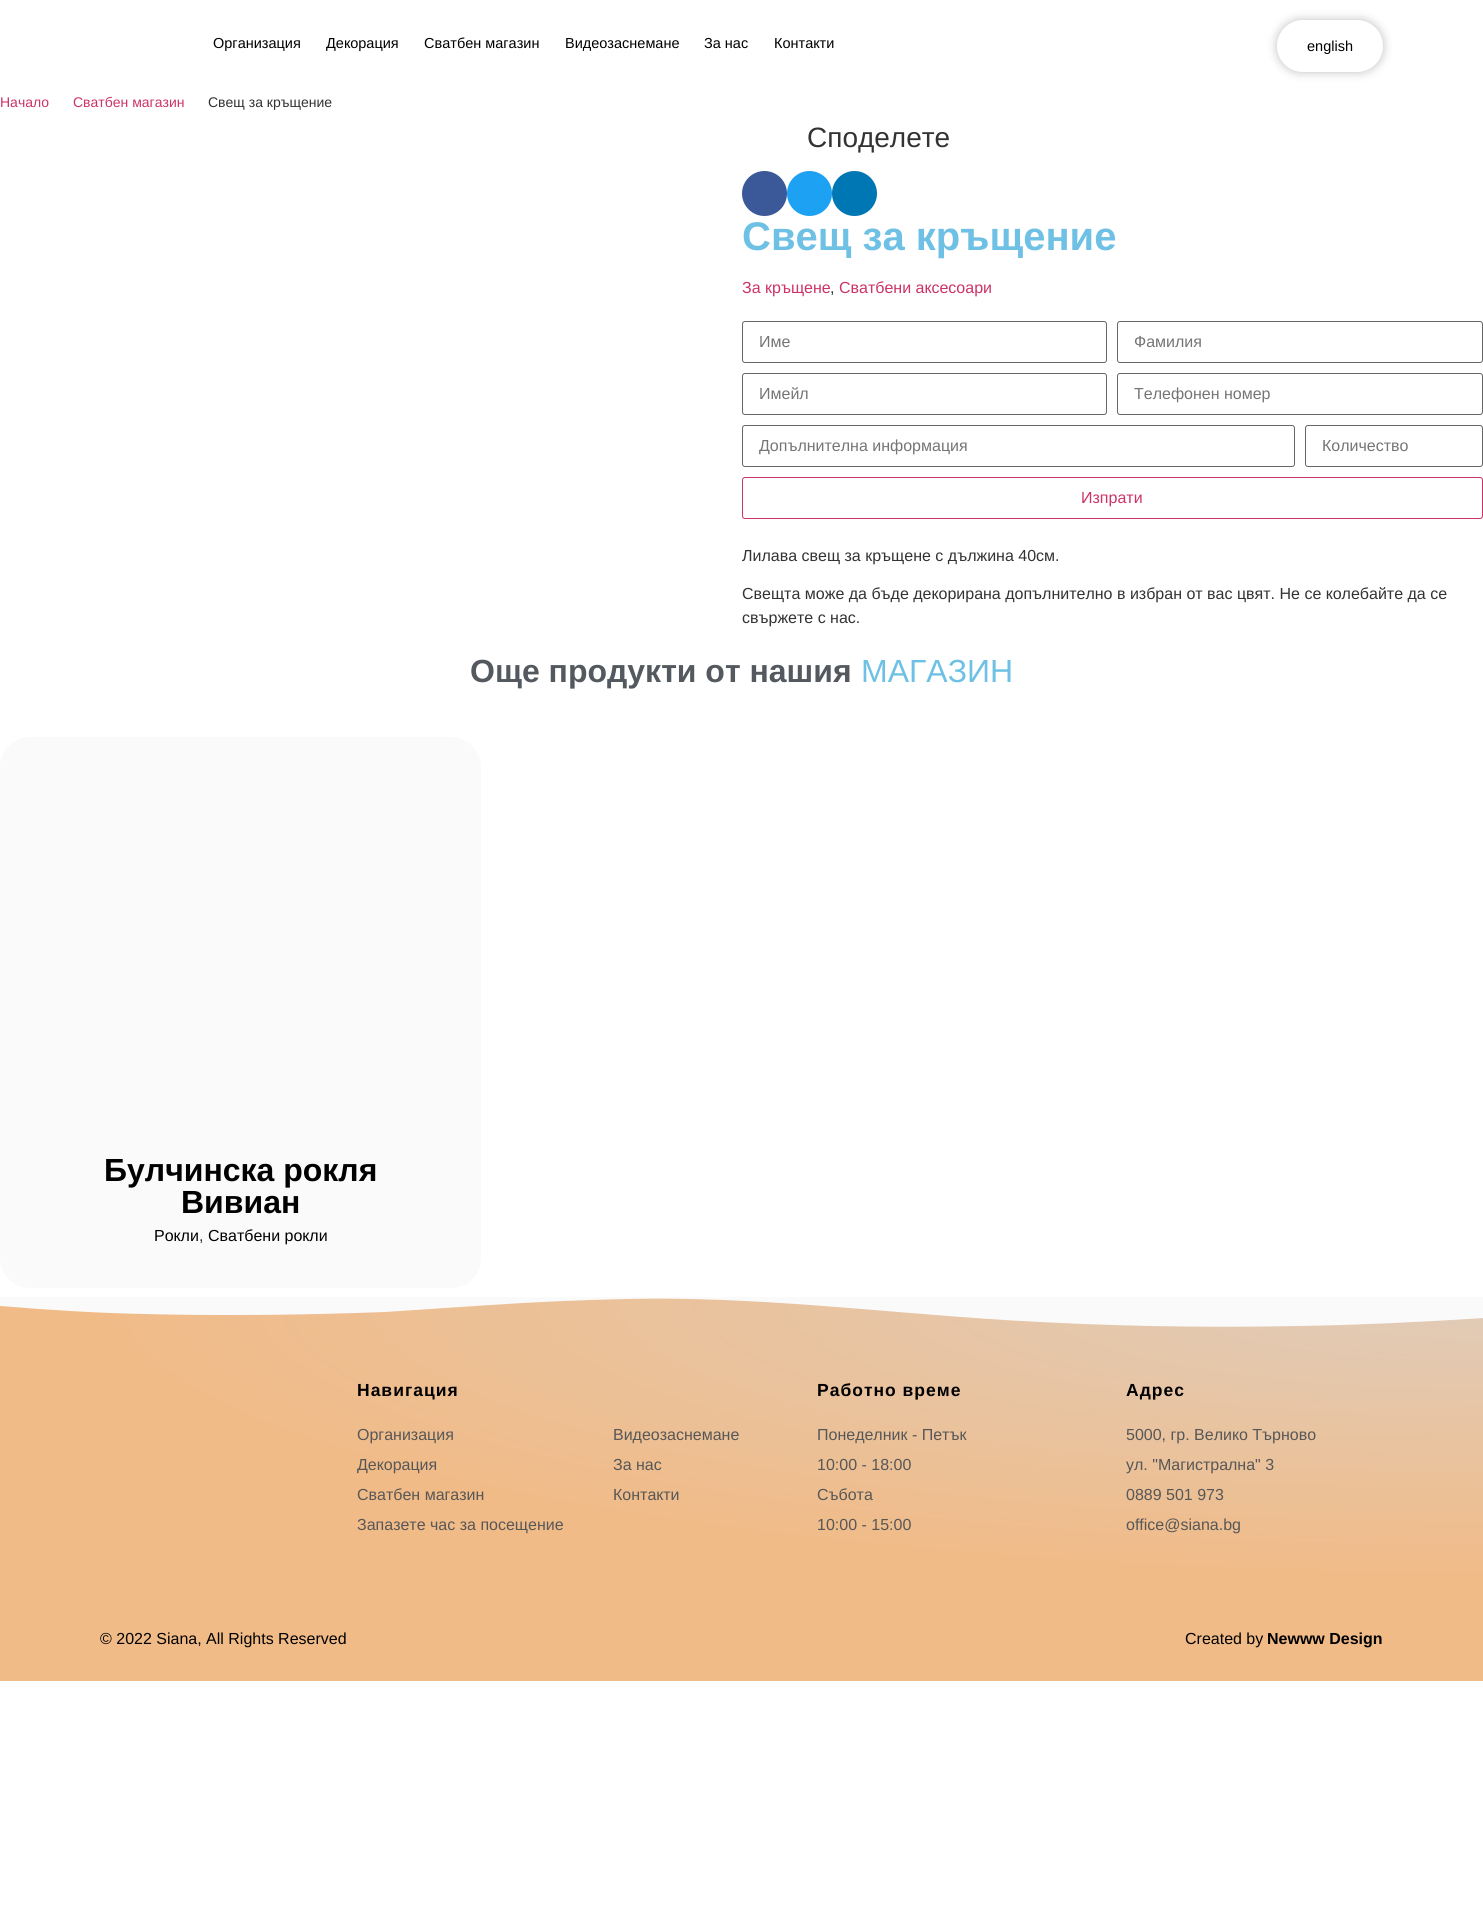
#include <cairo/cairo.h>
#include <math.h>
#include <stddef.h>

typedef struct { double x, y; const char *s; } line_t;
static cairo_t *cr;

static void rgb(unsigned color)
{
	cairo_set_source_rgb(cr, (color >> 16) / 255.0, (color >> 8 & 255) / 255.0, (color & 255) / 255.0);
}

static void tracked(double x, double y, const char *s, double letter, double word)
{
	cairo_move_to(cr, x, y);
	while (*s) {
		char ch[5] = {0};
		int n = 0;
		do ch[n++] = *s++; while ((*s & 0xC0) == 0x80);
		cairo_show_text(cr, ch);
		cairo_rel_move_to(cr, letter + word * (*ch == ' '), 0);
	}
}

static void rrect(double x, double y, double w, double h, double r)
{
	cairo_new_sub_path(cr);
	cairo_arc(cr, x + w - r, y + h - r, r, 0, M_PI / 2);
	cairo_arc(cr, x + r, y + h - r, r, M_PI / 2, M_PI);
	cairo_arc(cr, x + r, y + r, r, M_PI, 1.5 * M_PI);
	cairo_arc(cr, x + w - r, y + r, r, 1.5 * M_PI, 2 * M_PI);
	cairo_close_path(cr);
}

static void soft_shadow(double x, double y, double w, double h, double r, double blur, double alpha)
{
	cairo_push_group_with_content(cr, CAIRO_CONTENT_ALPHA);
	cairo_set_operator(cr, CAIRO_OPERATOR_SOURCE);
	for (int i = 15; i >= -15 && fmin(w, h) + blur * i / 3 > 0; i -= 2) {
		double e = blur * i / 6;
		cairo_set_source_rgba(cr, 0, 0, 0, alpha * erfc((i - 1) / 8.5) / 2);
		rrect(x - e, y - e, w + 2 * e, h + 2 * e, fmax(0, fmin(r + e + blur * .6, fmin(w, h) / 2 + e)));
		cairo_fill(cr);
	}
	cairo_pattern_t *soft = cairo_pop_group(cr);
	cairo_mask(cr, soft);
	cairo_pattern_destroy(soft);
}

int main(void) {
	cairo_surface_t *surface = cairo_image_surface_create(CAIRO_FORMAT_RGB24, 1483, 1922);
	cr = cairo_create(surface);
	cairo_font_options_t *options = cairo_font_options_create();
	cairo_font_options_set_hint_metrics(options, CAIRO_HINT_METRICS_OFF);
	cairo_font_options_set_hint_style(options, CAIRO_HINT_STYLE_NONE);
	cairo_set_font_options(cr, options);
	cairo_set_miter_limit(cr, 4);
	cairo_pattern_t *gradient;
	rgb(0xffffff);
	cairo_paint(cr);
	rgb(0x000000);
	soft_shadow(1277, 20, 106, 52, 26, 5, 0.25);
	rgb(0xffffff);
	rrect(1277, 20, 106, 52, 26);
	cairo_fill(cr);
	rgb(0x3b5998);
	cairo_arc(cr, 764.5, 193.5, 22.5, 0, 2 * M_PI);
	cairo_fill(cr);
	rgb(0x1da1f2);
	cairo_arc(cr, 809.5, 193.5, 22.5, 0, 2 * M_PI);
	cairo_fill(cr);
	rgb(0x0077b5);
	cairo_arc(cr, 854.5, 193.5, 22.5, 0, 2 * M_PI);
	cairo_fill(cr);
	rrect(742.5, 321.5, 364, 41, 2.5);
	rgb(0x666666);
	cairo_set_line_width(cr, 1);
	cairo_stroke(cr);
	rrect(1117.5, 321.5, 365, 41, 2.5);
	cairo_stroke(cr);
	rrect(742.5, 373.5, 364, 41, 2.5);
	cairo_stroke(cr);
	rrect(1117.5, 373.5, 365, 41, 2.5);
	cairo_stroke(cr);
	rrect(742.5, 425.5, 552, 41, 2.5);
	cairo_stroke(cr);
	rrect(1305.5, 425.5, 177, 41, 2.5);
	cairo_stroke(cr);
	rrect(742.5, 477.5, 740, 41, 2.5);
	rgb(0xcc3366);
	cairo_stroke(cr);
	rgb(0xfafafa);
	rrect(0, 737, 481, 551, 30);
	cairo_fill(cr);
	gradient = cairo_pattern_create_radial(0, 0, 0, 0, 0, 1);
	cairo_pattern_set_matrix(gradient, &(cairo_matrix_t){1.0 / 2097, 0, 0, 1.0 / 423, -1.0 * 1483 / 2097, -1.0 * 1298 / 423});
	cairo_pattern_add_color_stop_rgba(gradient, 0, 0.878, 0.8, 0.729, 1);
	cairo_pattern_add_color_stop_rgba(gradient, 0.67, 0.945, 0.733, 0.529, 1);
	cairo_set_source(cr, gradient);
	cairo_pattern_destroy(gradient);
	cairo_rectangle(cr, 0, 1298, 1483, 299);
	cairo_fill(cr);
	rgb(0xfafafa);
	cairo_new_path(cr);
	cairo_move_to(cr, 626, 1299);
	cairo_curve_to(cr, 752, 1296, 878, 1312, 1004, 1320);
	cairo_curve_to(cr, 1102, 1326, 1200, 1328, 1298, 1326);
	cairo_curve_to(cr, 1360, 1325, 1422, 1322, 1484, 1318);
	cairo_line_to(cr, 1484, 1297);
	cairo_line_to(cr, 0, 1297);
	cairo_line_to(cr, 0, 1306);
	cairo_curve_to(cr, 48, 1310, 96, 1313, 144, 1314);
	cairo_curve_to(cr, 224, 1316, 305, 1315, 385, 1312);
	cairo_line_to(cr, 490, 1305);
	cairo_curve_to(cr, 535, 1302, 581, 1300, 626, 1299);
	cairo_close_path(cr);
	cairo_fill(cr);
	rgb(0xf1bb87);
	cairo_rectangle(cr, 0, 1597, 1483, 84);
	cairo_fill(cr);
	cairo_select_font_face(cr, "Liberation Sans", CAIRO_FONT_SLANT_NORMAL, CAIRO_FONT_WEIGHT_NORMAL);
	cairo_set_font_size(cr, 14.5);
	rgb(0x000000);
	{
		static const line_t items[] = {
			{213, 48, "Организация"},
			{326, 48, "Декорация"},
			{424, 48, "Сватбен магазин"},
			{565, 48, "Видеозаснемане"},
			{704, 48, "За нас"},
			{774, 48, "Контакти"},
			{1307, 51, "english"},
		};
		for (size_t i = 0; i < sizeof items / sizeof *items; i++) {
			cairo_move_to(cr, items[i].x, items[i].y);
			cairo_show_text(cr, items[i].s);
		}
	}
	cairo_set_font_size(cr, 14);
	rgb(0xcc3366);
	cairo_move_to(cr, 0, 107);
	cairo_show_text(cr, "Начало");
	cairo_move_to(cr, 73, 107);
	cairo_show_text(cr, "Сватбен магазин");
	rgb(0x333333);
	cairo_move_to(cr, 208, 107);
	cairo_show_text(cr, "Свещ за кръщение");
	cairo_set_font_size(cr, 28);
	cairo_move_to(cr, 807, 147);
	cairo_show_text(cr, "Споделете");
	cairo_select_font_face(cr, "Liberation Sans", CAIRO_FONT_SLANT_NORMAL, CAIRO_FONT_WEIGHT_BOLD);
	cairo_set_font_size(cr, 40);
	rgb(0x6ec1e4);
	cairo_move_to(cr, 742, 250);
	cairo_show_text(cr, "Свещ за кръщение");
	cairo_select_font_face(cr, "Liberation Sans", CAIRO_FONT_SLANT_NORMAL, CAIRO_FONT_WEIGHT_NORMAL);
	cairo_set_font_size(cr, 16);
	rgb(0xcc3366);
	cairo_move_to(cr, 742, 293);
	cairo_show_text(cr, "За кръщене");
	rgb(0x333333);
	cairo_move_to(cr, 830, 293);
	cairo_show_text(cr, ",");
	rgb(0xcc3366);
	cairo_move_to(cr, 839, 293);
	cairo_show_text(cr, "Сватбени аксесоари");
	rgb(0x757575);
	{
		static const line_t items[] = {
			{759, 347, "Име"},
			{1134, 347, "Фамилия"},
			{759, 399, "Имейл"},
			{1134, 399, "Телефонен номер"},
		};
		for (size_t i = 0; i < sizeof items / sizeof *items; i++) {
			cairo_move_to(cr, items[i].x, items[i].y);
			cairo_show_text(cr, items[i].s);
		}
	}
	cairo_save(cr);
	cairo_rectangle(cr, 759, 437, 519, 18);
	cairo_clip(cr);
	cairo_move_to(cr, 759, 451);
	cairo_show_text(cr, "Допълнителна информация");
	cairo_restore(cr);
	cairo_move_to(cr, 1322, 451);
	cairo_show_text(cr, "Количество");
	rgb(0xcc3366);
	cairo_move_to(cr, 1081, 503);
	cairo_show_text(cr, "Изпрати");
	rgb(0x333333);
	{
		static const line_t items[] = {
			{742, 561, "Лилава свещ за кръщене с дължина 40см."},
			{742, 599, "Свещта може да бъде декорирана допълнително в избран от вас цвят. Не се колебайте да се"},
			{742, 623, "свържете с нас."},
		};
		for (size_t i = 0; i < sizeof items / sizeof *items; i++) {
			cairo_move_to(cr, items[i].x, items[i].y);
			cairo_show_text(cr, items[i].s);
		}
	}
	cairo_select_font_face(cr, "Liberation Sans", CAIRO_FONT_SLANT_NORMAL, CAIRO_FONT_WEIGHT_BOLD);
	cairo_set_font_size(cr, 32);
	rgb(0x54595f);
	cairo_move_to(cr, 470, 682);
	cairo_show_text(cr, "Още продукти от нашия");
	cairo_select_font_face(cr, "Liberation Sans", CAIRO_FONT_SLANT_NORMAL, CAIRO_FONT_WEIGHT_NORMAL);
	rgb(0x6ec1e4);
	cairo_move_to(cr, 861, 682);
	cairo_show_text(cr, "МАГАЗИН");
	cairo_select_font_face(cr, "Liberation Sans", CAIRO_FONT_SLANT_NORMAL, CAIRO_FONT_WEIGHT_BOLD);
	rgb(0x000000);
	cairo_move_to(cr, 104, 1181);
	cairo_show_text(cr, "Булчинска рокля");
	cairo_move_to(cr, 181, 1213);
	cairo_show_text(cr, "Вивиан");
	cairo_select_font_face(cr, "Liberation Sans", CAIRO_FONT_SLANT_NORMAL, CAIRO_FONT_WEIGHT_NORMAL);
	cairo_set_font_size(cr, 16);
	cairo_move_to(cr, 154, 1241);
	cairo_show_text(cr, "Рокли");
	rgb(0x333333);
	cairo_move_to(cr, 199, 1241);
	cairo_show_text(cr, ",");
	rgb(0x000000);
	cairo_move_to(cr, 208, 1241);
	cairo_show_text(cr, "Сватбени рокли");
	cairo_select_font_face(cr, "Liberation Sans", CAIRO_FONT_SLANT_NORMAL, CAIRO_FONT_WEIGHT_BOLD);
	cairo_set_font_size(cr, 17.5);
	tracked(357, 1396, "Навигация", 1, 0);
	cairo_select_font_face(cr, "Liberation Sans", CAIRO_FONT_SLANT_NORMAL, CAIRO_FONT_WEIGHT_NORMAL);
	cairo_set_font_size(cr, 16);
	rgb(0x575757);
	{
		static const line_t items[] = {
			{357, 1440, "Организация"},
			{357, 1470, "Декорация"},
			{357, 1500, "Сватбен магазин"},
			{357, 1530, "Запазете час за посещение"},
			{613, 1440, "Видеозаснемане"},
			{613, 1470, "За нас"},
			{613, 1500, "Контакти"},
		};
		for (size_t i = 0; i < sizeof items / sizeof *items; i++) {
			cairo_move_to(cr, items[i].x, items[i].y);
			cairo_show_text(cr, items[i].s);
		}
	}
	cairo_select_font_face(cr, "Liberation Sans", CAIRO_FONT_SLANT_NORMAL, CAIRO_FONT_WEIGHT_BOLD);
	cairo_set_font_size(cr, 17.5);
	rgb(0x000000);
	tracked(817, 1396, "Работно време", 1, 0);
	cairo_select_font_face(cr, "Liberation Sans", CAIRO_FONT_SLANT_NORMAL, CAIRO_FONT_WEIGHT_NORMAL);
	cairo_set_font_size(cr, 16);
	rgb(0x575757);
	{
		static const line_t items[] = {
			{817, 1440, "Понеделник - Петък"},
			{817, 1470, "10:00 - 18:00"},
			{817, 1500, "Събота"},
			{817, 1530, "10:00 - 15:00"},
		};
		for (size_t i = 0; i < sizeof items / sizeof *items; i++) {
			cairo_move_to(cr, items[i].x, items[i].y);
			cairo_show_text(cr, items[i].s);
		}
	}
	cairo_select_font_face(cr, "Liberation Sans", CAIRO_FONT_SLANT_NORMAL, CAIRO_FONT_WEIGHT_BOLD);
	cairo_set_font_size(cr, 17.5);
	rgb(0x000000);
	tracked(1126, 1396, "Адрес", 1, 0);
	cairo_select_font_face(cr, "Liberation Sans", CAIRO_FONT_SLANT_NORMAL, CAIRO_FONT_WEIGHT_NORMAL);
	cairo_set_font_size(cr, 16);
	rgb(0x575757);
	{
		static const line_t items[] = {
			{1126, 1440, "5000, гр. Велико Търново"},
			{1126, 1470, "ул. \"Магистрална\" 3"},
			{1126, 1500, "0889 501 973"},
			{1126, 1530, "office@siana.bg"},
		};
		for (size_t i = 0; i < sizeof items / sizeof *items; i++) {
			cairo_move_to(cr, items[i].x, items[i].y);
			cairo_show_text(cr, items[i].s);
		}
	}
	rgb(0x000000);
	cairo_move_to(cr, 100, 1644);
	cairo_show_text(cr, "© 2022 Siana, All Rights Reserved");
	cairo_move_to(cr, 1185, 1644);
	cairo_show_text(cr, "Created by");
	cairo_select_font_face(cr, "Liberation Sans", CAIRO_FONT_SLANT_NORMAL, CAIRO_FONT_WEIGHT_BOLD);
	cairo_move_to(cr, 1267, 1644);
	cairo_show_text(cr, "Newww Design");
	cairo_surface_write_to_png(surface, "page.png");
	cairo_font_options_destroy(options);
	cairo_destroy(cr);
	cairo_surface_destroy(surface);
	return 0;
}
